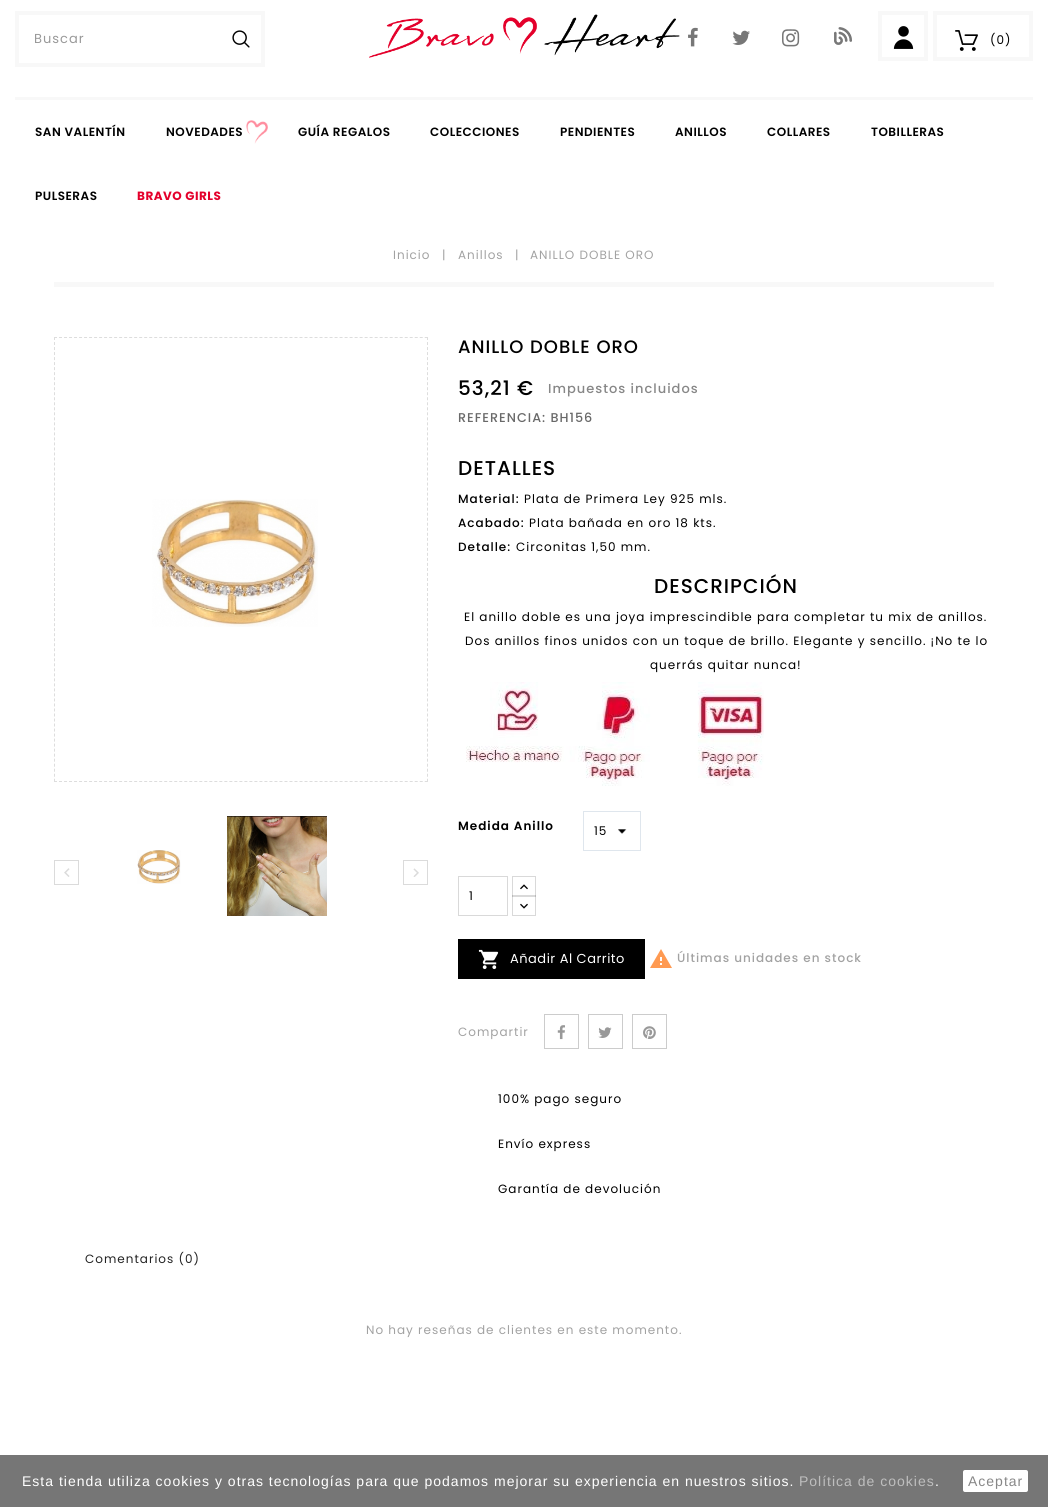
#include <cairo/cairo.h>
#include <math.h>
#include <stddef.h>

typedef struct { double x, y; const char *s; } line_t;
static cairo_t *cr;

static void rgb(unsigned color)
{
	cairo_set_source_rgb(cr, (color >> 16) / 255.0, (color >> 8 & 255) / 255.0, (color & 255) / 255.0);
}

static void tracked(double x, double y, const char *s, double letter, double word)
{
	cairo_move_to(cr, x, y);
	while (*s) {
		char ch[5] = {0};
		int n = 0;
		do ch[n++] = *s++; while ((*s & 0xC0) == 0x80);
		cairo_show_text(cr, ch);
		cairo_rel_move_to(cr, letter + word * (*ch == ' '), 0);
	}
}

static void rrect(double x, double y, double w, double h, double r)
{
	cairo_new_sub_path(cr);
	cairo_arc(cr, x + w - r, y + h - r, r, 0, M_PI / 2);
	cairo_arc(cr, x + r, y + h - r, r, M_PI / 2, M_PI);
	cairo_arc(cr, x + r, y + r, r, M_PI, 1.5 * M_PI);
	cairo_arc(cr, x + w - r, y + r, r, 1.5 * M_PI, 2 * M_PI);
	cairo_close_path(cr);
}

static void image(const char *path, double x, double y, double w, double h)
{
	cairo_surface_t *image = cairo_image_surface_create_from_png(path);
	cairo_save(cr);
	cairo_set_source_surface(cr, image, x, y);
	cairo_rectangle(cr, x, y, w, h);
	cairo_fill(cr);
	cairo_restore(cr);
	cairo_surface_destroy(image);
}

int main(void) {
	cairo_surface_t *surface = cairo_image_surface_create(CAIRO_FORMAT_RGB24, 1048, 1507);
	cr = cairo_create(surface);
	cairo_font_options_t *options = cairo_font_options_create();
	cairo_font_options_set_hint_metrics(options, CAIRO_HINT_METRICS_OFF);
	cairo_font_options_set_hint_style(options, CAIRO_HINT_STYLE_NONE);
	cairo_set_font_options(cr, options);
	cairo_set_miter_limit(cr, 4);
	rgb(0xffffff);
	cairo_paint(cr);
	cairo_rectangle(cr, 17, 13, 246, 52);
	rgb(0xf8f8f8);
	cairo_set_line_width(cr, 4);
	cairo_stroke(cr);
	image("img/1.png", 232, 30, 18, 18);
	image("img/2.png", 369, 14, 311, 44);
	image("img/3.png", 688, 27, 10, 20);
	image("img/4.png", 732, 30, 18, 15);
	image("img/5.png", 782, 29, 18, 18);
	image("img/6.png", 834, 27, 18, 18);
	cairo_rectangle(cr, 880, 13, 46, 46);
	cairo_stroke(cr);
	image("img/7.png", 893, 26, 21, 23);
	cairo_rectangle(cr, 935, 13, 96, 46);
	cairo_stroke(cr);
	image("img/8.png", 955, 30, 23, 21);
	cairo_rectangle(cr, 15, 97, 1018, 3);
	cairo_fill(cr);
	image("img/9.png", 246, 120, 22, 24);
	cairo_rectangle(cr, 54, 282, 940, 5);
	cairo_fill(cr);
	cairo_new_path(cr);
	cairo_move_to(cr, 54, 337.5);
	cairo_line_to(cr, 428, 337.5);
	rgb(0xdddddd);
	cairo_set_line_width(cr, 1);
	cairo_set_dash(cr, (double[]){3, 2.01}, 2, 0);
	cairo_stroke(cr);
	cairo_new_path(cr);
	cairo_move_to(cr, 427.5, 337);
	cairo_line_to(cr, 427.5, 782);
	cairo_set_dash(cr, (double[]){3, 2.02}, 2, 0);
	cairo_stroke(cr);
	cairo_new_path(cr);
	cairo_move_to(cr, 54, 781.5);
	cairo_line_to(cr, 428, 781.5);
	cairo_set_dash(cr, (double[]){3, 2.01}, 2, 0);
	cairo_stroke(cr);
	cairo_new_path(cr);
	cairo_move_to(cr, 54.5, 337);
	cairo_line_to(cr, 54.5, 782);
	cairo_set_dash(cr, (double[]){3, 2.02}, 2, 0);
	cairo_stroke(cr);
	image("img/10.png", 152, 499, 166, 128);
	image("img/11.png", 137, 850, 44, 34);
	image("img/12.png", 227, 816, 100, 100);
	cairo_rectangle(cr, 54.5, 860.5, 24, 24);
	rgb(0xdbdbdb);
	cairo_set_dash(cr, NULL, 0, 0);
	cairo_stroke(cr);
	image("img/13.png", 64, 868, 6, 9);
	cairo_rectangle(cr, 403.5, 860.5, 24, 24);
	cairo_stroke(cr);
	image("img/14.png", 413, 868, 6, 9);
	image("img/15.png", 466, 682, 298, 104);
	image("img/16.png", 618, 829, 9, 5);
	cairo_rectangle(cr, 583.5, 811.5, 57, 39);
	rgb(0xdfe6ed);
	cairo_stroke(cr);
	cairo_rectangle(cr, 458.5, 876.5, 49, 39);
	rgb(0xd9d9d9);
	cairo_stroke(cr);
	cairo_rectangle(cr, 512.5, 876.5, 23, 20);
	cairo_stroke(cr);
	image("img/17.png", 520, 884, 8, 6);
	cairo_rectangle(cr, 512.5, 895.5, 23, 20);
	cairo_set_source_rgba(cr, 0, 0, 0, 0.15);
	cairo_stroke(cr);
	image("img/18.png", 520, 903, 8, 6);
	rgb(0x000000);
	cairo_rectangle(cr, 458, 939, 187, 40);
	cairo_fill(cr);
	image("img/19.png", 478, 949, 21, 21);
	image("img/20.png", 650, 949, 22, 19);
	cairo_rectangle(cr, 544.5, 1014.5, 34, 34);
	rgb(0xcccccc);
	cairo_stroke(cr);
	image("img/21.png", 557, 1025, 8, 15);
	cairo_rectangle(cr, 588.5, 1014.5, 34, 34);
	cairo_stroke(cr);
	image("img/22.png", 598, 1027, 14, 11);
	cairo_rectangle(cr, 632.5, 1014.5, 34, 34);
	cairo_stroke(cr);
	image("img/23.png", 643, 1026, 13, 13);
	rgb(0x767676);
	cairo_rectangle(cr, 0, 1455, 1048, 52);
	cairo_fill(cr);
	rgb(0xffffff);
	rrect(963, 1470, 65, 22, 2);
	cairo_fill(cr);
	cairo_select_font_face(cr, "Poppins", CAIRO_FONT_SLANT_NORMAL, CAIRO_FONT_WEIGHT_NORMAL);
	cairo_set_font_size(cr, 13);
	rgb(0x999999);
	tracked(34, 43, "Buscar", 1, 0);
	cairo_set_font_size(cr, 12);
	rgb(0x000000);
	tracked(990, 44, "(0)", 1, 0);
	cairo_select_font_face(cr, "Poppins SemiBold", CAIRO_FONT_SLANT_NORMAL, CAIRO_FONT_WEIGHT_NORMAL);
	{
		static const line_t items[] = {
			{35, 136, "SAN VALENTÍN"},
			{166, 136, "NOVEDADES"},
			{298, 136, "GUÍA REGALOS"},
			{430, 136, "COLECCIONES"},
			{560, 136, "PENDIENTES"},
			{675, 136, "ANILLOS"},
			{767, 136, "COLLARES"},
			{871, 136, "TOBILLERAS"},
			{35, 200, "PULSERAS"},
		};
		for (size_t i = 0; i < sizeof items / sizeof *items; i++) {
			tracked(items[i].x, items[i].y, items[i].s, 0.5, 0);
		}
	}
	cairo_select_font_face(cr, "Poppins", CAIRO_FONT_SLANT_NORMAL, CAIRO_FONT_WEIGHT_BOLD);
	rgb(0xe4002b);
	tracked(137, 200, "BRAVO GIRLS", 0.5, 0);
	cairo_select_font_face(cr, "Poppins", CAIRO_FONT_SLANT_NORMAL, CAIRO_FONT_WEIGHT_NORMAL);
	rgb(0xa2a2a2);
	{
		static const line_t items[] = {
			{393, 259, "Inicio"},
			{442, 259, "|"},
			{458, 259, "Anillos"},
			{515, 259, "|"},
			{530, 259, "ANILLO DOBLE ORO"},
		};
		for (size_t i = 0; i < sizeof items / sizeof *items; i++) {
			tracked(items[i].x, items[i].y, items[i].s, 1, 0);
		}
	}
	cairo_select_font_face(cr, "Poppins Medium", CAIRO_FONT_SLANT_NORMAL, CAIRO_FONT_WEIGHT_NORMAL);
	cairo_set_font_size(cr, 18);
	rgb(0x000000);
	tracked(458, 353, "ANILLO DOBLE ORO", 1, 0);
	cairo_set_font_size(cr, 20);
	tracked(458, 395, "53,21 €", 1, 0);
	cairo_set_font_size(cr, 13);
	rgb(0x878787);
	tracked(548, 393, "Impuestos incluidos", 1, 0);
	cairo_set_font_size(cr, 12.75);
	rgb(0x696969);
	tracked(458, 422, "REFERENCIA: BH156", 1, 0);
	cairo_set_font_size(cr, 20);
	rgb(0x000000);
	tracked(458, 475, "DETALLES", 1, 0);
	cairo_set_font_size(cr, 12);
	tracked(458, 503, "Material:", 1, 0);
	cairo_select_font_face(cr, "Poppins", CAIRO_FONT_SLANT_NORMAL, CAIRO_FONT_WEIGHT_NORMAL);
	tracked(524, 503, "Plata de Primera Ley 925 mls.", 1, 0);
	cairo_select_font_face(cr, "Poppins Medium", CAIRO_FONT_SLANT_NORMAL, CAIRO_FONT_WEIGHT_NORMAL);
	tracked(458, 527, "Acabado:", 1, 0);
	cairo_select_font_face(cr, "Poppins", CAIRO_FONT_SLANT_NORMAL, CAIRO_FONT_WEIGHT_NORMAL);
	tracked(529, 527, "Plata bañada en oro 18 kts.", 1, 0);
	cairo_select_font_face(cr, "Poppins Medium", CAIRO_FONT_SLANT_NORMAL, CAIRO_FONT_WEIGHT_NORMAL);
	tracked(458, 551, "Detalle:", 1, 0);
	cairo_select_font_face(cr, "Poppins", CAIRO_FONT_SLANT_NORMAL, CAIRO_FONT_WEIGHT_NORMAL);
	tracked(516, 551, "Circonitas 1,50 mm.", 1, 0);
	cairo_select_font_face(cr, "Poppins Medium", CAIRO_FONT_SLANT_NORMAL, CAIRO_FONT_WEIGHT_NORMAL);
	cairo_set_font_size(cr, 20);
	tracked(654, 593, "DESCRIPCIÓN", 1, 0);
	cairo_select_font_face(cr, "Poppins", CAIRO_FONT_SLANT_NORMAL, CAIRO_FONT_WEIGHT_NORMAL);
	cairo_set_font_size(cr, 12);
	{
		static const line_t items[] = {
			{464, 621, "El anillo doble es una joya imprescindible para completar tu mix de anillos."},
			{465, 645, "Dos anillos finos unidos con un toque de brillo. Elegante y sencillo. ¡No te lo"},
			{650, 669, "querrás quitar nunca!"},
		};
		for (size_t i = 0; i < sizeof items / sizeof *items; i++) {
			tracked(items[i].x, items[i].y, items[i].s, 1, 0);
		}
	}
	cairo_select_font_face(cr, "Poppins SemiBold", CAIRO_FONT_SLANT_NORMAL, CAIRO_FONT_WEIGHT_NORMAL);
	tracked(458, 830, "Medida Anillo", 1, 0);
	cairo_select_font_face(cr, "Poppins", CAIRO_FONT_SLANT_NORMAL, CAIRO_FONT_WEIGHT_NORMAL);
	tracked(594, 835, "15", 1, 0);
	tracked(469, 900, "1", 1, 0);
	cairo_set_font_size(cr, 13);
	rgb(0xffffff);
	tracked(510, 963, "Añadir Al Carrito", 0.5, 0);
	cairo_select_font_face(cr, "Poppins Medium", CAIRO_FONT_SLANT_NORMAL, CAIRO_FONT_WEIGHT_NORMAL);
	cairo_set_font_size(cr, 12);
	rgb(0xa2a2a2);
	tracked(677, 962, "Últimas unidades en stock", 1, 0);
	cairo_select_font_face(cr, "Poppins", CAIRO_FONT_SLANT_NORMAL, CAIRO_FONT_WEIGHT_NORMAL);
	tracked(458, 1036, "Compartir", 1, 0);
	rgb(0x000000);
	{
		static const line_t items[] = {
			{498, 1103, "100% pago seguro"},
			{498, 1148, "Envío express"},
			{498, 1193, "Garantía de devolución"},
		};
		for (size_t i = 0; i < sizeof items / sizeof *items; i++) {
			tracked(items[i].x, items[i].y, items[i].s, 1, 0);
		}
	}
	rgb(0x232323);
	tracked(85, 1263, "Comentarios (0)", 1, 0);
	rgb(0xa2a2a2);
	tracked(366, 1334, "No hay reseñas de clientes en este momento.", 1, 0);
	cairo_select_font_face(cr, "Liberation Sans", CAIRO_FONT_SLANT_NORMAL, CAIRO_FONT_WEIGHT_NORMAL);
	cairo_set_font_size(cr, 14);
	rgb(0xffffff);
	tracked(22, 1486, "Esta tienda utiliza cookies y otras tecnologías para que podamos mejorar su experiencia en nuestros sitios.", 1, 0);
	rgb(0xbebebe);
	tracked(799, 1486, "Política de cookies", 1, 0);
	rgb(0xffffff);
	tracked(935, 1486, ".", 1, 0);
	rgb(0x878787);
	tracked(968, 1486, "Aceptar", 1, 0);
	cairo_surface_write_to_png(surface, "page.png");
	cairo_font_options_destroy(options);
	cairo_destroy(cr);
	cairo_surface_destroy(surface);
	return 0;
}
